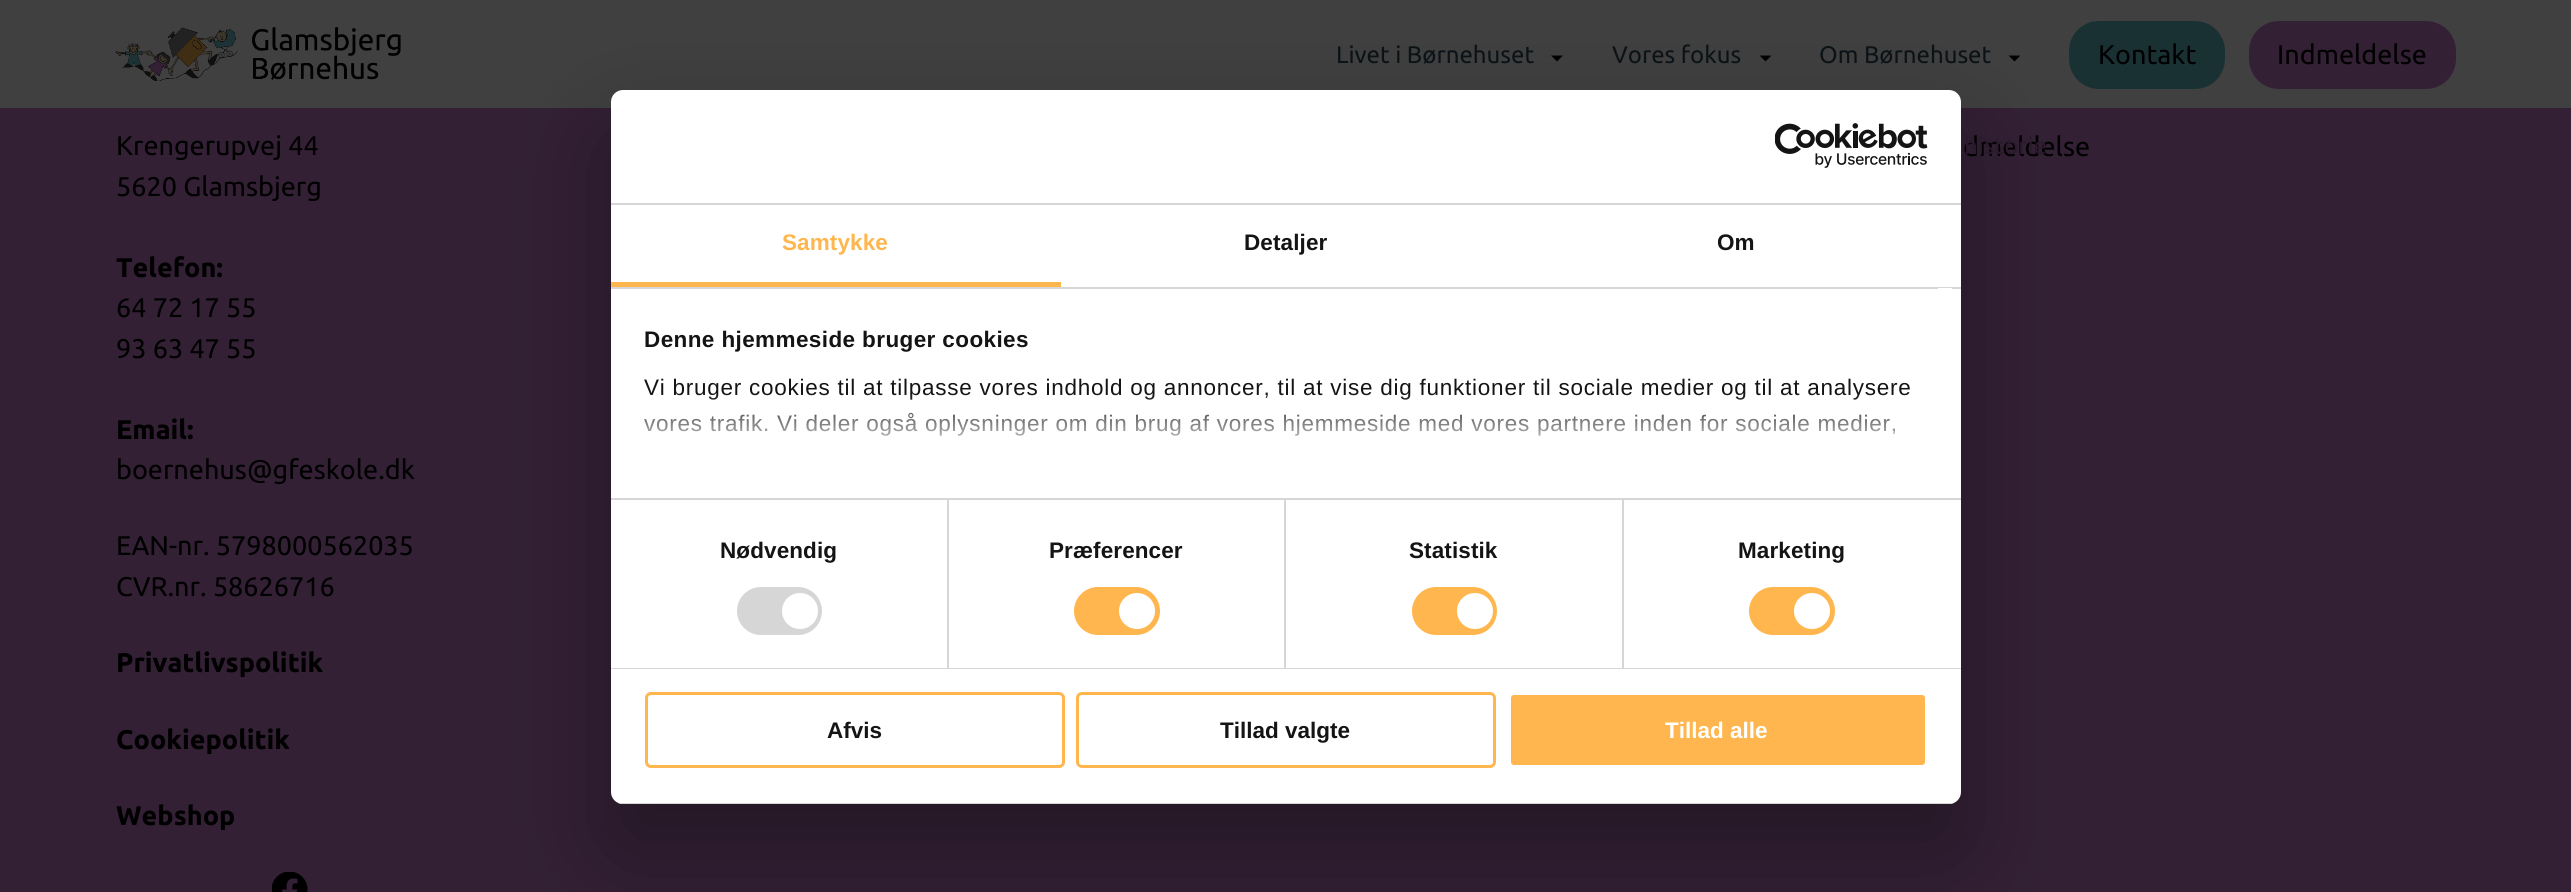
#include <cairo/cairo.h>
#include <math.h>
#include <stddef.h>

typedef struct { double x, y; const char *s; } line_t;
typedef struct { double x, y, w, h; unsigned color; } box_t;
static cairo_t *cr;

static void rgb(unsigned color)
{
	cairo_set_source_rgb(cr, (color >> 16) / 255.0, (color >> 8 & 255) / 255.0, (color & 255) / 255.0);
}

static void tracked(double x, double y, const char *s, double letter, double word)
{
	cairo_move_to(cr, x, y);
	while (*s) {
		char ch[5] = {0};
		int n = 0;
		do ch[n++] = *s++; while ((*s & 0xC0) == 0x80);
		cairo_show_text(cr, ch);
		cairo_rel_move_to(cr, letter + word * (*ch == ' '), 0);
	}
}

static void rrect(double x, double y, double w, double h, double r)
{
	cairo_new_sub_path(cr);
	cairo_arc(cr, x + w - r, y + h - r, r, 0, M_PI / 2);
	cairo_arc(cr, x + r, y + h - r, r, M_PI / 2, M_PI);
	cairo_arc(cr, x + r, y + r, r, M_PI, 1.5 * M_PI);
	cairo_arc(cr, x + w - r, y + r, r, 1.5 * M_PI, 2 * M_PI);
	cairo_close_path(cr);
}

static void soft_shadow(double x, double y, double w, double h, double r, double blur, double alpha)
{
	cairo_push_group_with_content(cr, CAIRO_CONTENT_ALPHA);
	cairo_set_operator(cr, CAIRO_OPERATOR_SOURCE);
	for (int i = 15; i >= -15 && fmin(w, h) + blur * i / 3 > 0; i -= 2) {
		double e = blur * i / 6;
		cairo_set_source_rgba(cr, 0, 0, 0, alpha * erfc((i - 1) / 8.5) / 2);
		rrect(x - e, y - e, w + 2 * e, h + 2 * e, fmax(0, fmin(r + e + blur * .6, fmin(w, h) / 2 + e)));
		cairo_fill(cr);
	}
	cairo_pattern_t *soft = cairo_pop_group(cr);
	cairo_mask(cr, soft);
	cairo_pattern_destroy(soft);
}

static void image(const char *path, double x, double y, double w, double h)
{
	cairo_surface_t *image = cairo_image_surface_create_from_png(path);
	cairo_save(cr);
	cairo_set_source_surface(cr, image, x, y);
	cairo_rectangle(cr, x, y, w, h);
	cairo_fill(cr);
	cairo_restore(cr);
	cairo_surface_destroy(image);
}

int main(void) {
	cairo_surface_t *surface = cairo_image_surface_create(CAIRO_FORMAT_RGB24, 2571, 892);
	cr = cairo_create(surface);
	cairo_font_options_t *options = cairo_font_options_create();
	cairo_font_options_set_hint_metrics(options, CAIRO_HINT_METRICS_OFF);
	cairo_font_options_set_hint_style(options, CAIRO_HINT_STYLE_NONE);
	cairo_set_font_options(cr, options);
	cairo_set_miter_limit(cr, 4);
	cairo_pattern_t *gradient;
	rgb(0x332035);
	cairo_paint(cr);
	rgb(0x404040);
	cairo_rectangle(cr, 0, 0, 2571, 108);
	cairo_fill(cr);
	image("img/1.png", 115, 27, 286, 54);
	rgb(0x000000);
	cairo_new_path(cr);
	cairo_move_to(cr, 1551, 55.5);
	cairo_line_to(cr, 1563, 55.5);
	cairo_line_to(cr, 1557, 61.5);
	cairo_close_path(cr);
	cairo_fill(cr);
	cairo_new_path(cr);
	cairo_move_to(cr, 1759.5, 55.5);
	cairo_line_to(cr, 1771.5, 55.5);
	cairo_line_to(cr, 1765.5, 61.5);
	cairo_close_path(cr);
	cairo_fill(cr);
	cairo_new_path(cr);
	cairo_move_to(cr, 2008.5, 55.5);
	cairo_line_to(cr, 2020.5, 55.5);
	cairo_line_to(cr, 2014.5, 61.5);
	cairo_close_path(cr);
	cairo_fill(cr);
	rgb(0x1a3134);
	rrect(2072, 24, 150, 62, 27);
	cairo_fill_preserve(cr);
	cairo_set_line_width(cr, 6);
	cairo_stroke(cr);
	rgb(0x332035);
	rrect(2252, 24, 201, 62, 27);
	cairo_fill_preserve(cr);
	cairo_stroke(cr);
	image("img/2.png", 272, 872, 36, 20);
	rgb(0x000000);
	soft_shadow(611, 138, 1350, 714, 12, 51, 0.3);
	rgb(0xffffff);
	rrect(611, 90, 1350, 714, 12);
	cairo_fill(cr);
	rgb(0xd6d6d6);
	cairo_rectangle(cr, 611, 203, 1350, 2);
	cairo_fill(cr);
	image("img/3.png", 1775, 123, 153, 45);
	{
		static const box_t items[] = {
			{611, 287, 1350, 2, 0xd6d6d6},
			{611, 282, 450, 5, 0xffb64e},
			{611, 498, 1350, 2, 0xd6d6d6},
			{1938, 288, 14, 1, 0xffffff},
			{611, 668, 1350, 1, 0xd6d6d6},
			{947, 500, 2, 168, 0xd6d6d6},
		};
		for (size_t i = 0; i < sizeof items / sizeof *items; i++) {
			rgb(items[i].color);
			cairo_rectangle(cr, items[i].x, items[i].y, items[i].w, items[i].h);
			cairo_fill(cr);
		}
	}
	rrect(737, 587, 85, 48, 24);
	cairo_fill(cr);
	rgb(0xffffff);
	cairo_arc(cr, 800, 611, 18, 0, 2 * M_PI);
	cairo_fill(cr);
	rgb(0xd6d6d6);
	cairo_rectangle(cr, 1284, 500, 2, 168);
	cairo_fill(cr);
	rgb(0xffb64e);
	rrect(1074, 587, 86, 48, 24);
	cairo_fill(cr);
	rgb(0xffffff);
	cairo_arc(cr, 1137, 611, 18, 0, 2 * M_PI);
	cairo_fill(cr);
	rgb(0xd6d6d6);
	cairo_rectangle(cr, 1622, 500, 2, 168);
	cairo_fill(cr);
	rgb(0xffb64e);
	rrect(1412, 587, 85, 48, 24);
	cairo_fill(cr);
	rgb(0xffffff);
	cairo_arc(cr, 1475, 611, 18, 0, 2 * M_PI);
	cairo_fill(cr);
	rgb(0xffb64e);
	rrect(1749, 587, 86, 48, 24);
	cairo_fill(cr);
	rgb(0xffffff);
	cairo_arc(cr, 1812, 611, 18, 0, 2 * M_PI);
	cairo_fill(cr);
	cairo_save(cr);
	rrect(611, 90, 1350, 714, 12);
	cairo_clip(cr);
	rgb(0xd6d6d6);
	cairo_rectangle(cr, 611, 803, 1350, 1);
	cairo_fill(cr);
	cairo_restore(cr);
	rrect(646.5, 693.5, 417, 73, 4.5);
	rgb(0xffb64e);
	cairo_set_line_width(cr, 3);
	cairo_stroke(cr);
	rrect(1077.5, 693.5, 417, 73, 4.5);
	cairo_stroke(cr);
	rrect(1509.5, 693.5, 417, 73, 4.5);
	cairo_fill_preserve(cr);
	rgb(0xffffff);
	cairo_stroke(cr);
	cairo_select_font_face(cr, "Ubuntu", CAIRO_FONT_SLANT_NORMAL, CAIRO_FONT_WEIGHT_NORMAL);
	cairo_set_font_size(cr, 24);
	rgb(0x0c1317);
	{
		static const line_t items[] = {
			{1336, 63, "Livet i Børnehuset"},
			{1612, 63, "Vores fokus"},
			{1819, 63, "Om Børnehuset"},
		};
		for (size_t i = 0; i < sizeof items / sizeof *items; i++) {
			cairo_move_to(cr, items[i].x, items[i].y);
			cairo_show_text(cr, items[i].s);
		}
	}
	cairo_set_font_size(cr, 27);
	rgb(0x000000);
	{
		static const line_t items[] = {
			{2098, 64, "Kontakt"},
			{2277, 64, "Indmeldelse"},
			{116, 155, "Krengerupvej 44"},
			{116, 196, "5620 Glamsbjerg"},
		};
		for (size_t i = 0; i < sizeof items / sizeof *items; i++) {
			cairo_move_to(cr, items[i].x, items[i].y);
			cairo_show_text(cr, items[i].s);
		}
	}
	cairo_select_font_face(cr, "Ubuntu", CAIRO_FONT_SLANT_NORMAL, CAIRO_FONT_WEIGHT_BOLD);
	cairo_move_to(cr, 116, 277);
	cairo_show_text(cr, "Telefon:");
	cairo_select_font_face(cr, "Ubuntu", CAIRO_FONT_SLANT_NORMAL, CAIRO_FONT_WEIGHT_NORMAL);
	cairo_move_to(cr, 116, 317);
	cairo_show_text(cr, "64 72 17 55");
	cairo_move_to(cr, 116, 358);
	cairo_show_text(cr, "93 63 47 55");
	cairo_select_font_face(cr, "Ubuntu", CAIRO_FONT_SLANT_NORMAL, CAIRO_FONT_WEIGHT_BOLD);
	cairo_move_to(cr, 116, 439);
	cairo_show_text(cr, "Email:");
	cairo_select_font_face(cr, "Ubuntu", CAIRO_FONT_SLANT_NORMAL, CAIRO_FONT_WEIGHT_NORMAL);
	{
		static const line_t items[] = {
			{116, 479, "boernehus@gfeskole.dk"},
			{116, 555, "EAN-nr. 5798000562035"},
			{116, 596, "CVR.nr. 58626716"},
		};
		for (size_t i = 0; i < sizeof items / sizeof *items; i++) {
			cairo_move_to(cr, items[i].x, items[i].y);
			cairo_show_text(cr, items[i].s);
		}
	}
	cairo_select_font_face(cr, "Ubuntu", CAIRO_FONT_SLANT_NORMAL, CAIRO_FONT_WEIGHT_BOLD);
	{
		static const line_t items[] = {
			{116, 672, "Privatlivspolitik"},
			{116, 749, "Cookiepolitik"},
			{116, 825, "Webshop"},
		};
		for (size_t i = 0; i < sizeof items / sizeof *items; i++) {
			cairo_move_to(cr, items[i].x, items[i].y);
			cairo_show_text(cr, items[i].s);
		}
	}
	cairo_select_font_face(cr, "Ubuntu", CAIRO_FONT_SLANT_NORMAL, CAIRO_FONT_WEIGHT_NORMAL);
	cairo_move_to(cr, 1963, 156);
	cairo_show_text(cr, "dmeldelse");
	cairo_set_font_size(cr, 24);
	rgb(0x2a1a2c);
	cairo_move_to(cr, 1964, 154);
	cairo_show_text(cr, "historie");
	cairo_select_font_face(cr, "Liberation Sans", CAIRO_FONT_SLANT_NORMAL, CAIRO_FONT_WEIGHT_BOLD);
	cairo_set_font_size(cr, 22.5);
	rgb(0xffb64e);
	tracked(782, 250, "Samtykke", 0.1, 0);
	rgb(0x141414);
	tracked(1244, 250, "Detaljer", 0.1, 0);
	tracked(1717, 250, "Om", 0.1, 0);
	tracked(644, 347, "Denne hjemmeside bruger cookies", 0.4, 0);
	cairo_select_font_face(cr, "Liberation Sans", CAIRO_FONT_SLANT_NORMAL, CAIRO_FONT_WEIGHT_NORMAL);
	tracked(644, 395, "Vi bruger cookies til at tilpasse vores indhold og annoncer, til at vise dig funktioner til sociale medier og til at analysere", 0.75, 0);
	tracked(644, 431, "vores trafik. Vi deler også oplysninger om din brug af vores hjemmeside med vores partnere inden for sociale medier,", 0.75, 0);
	gradient = cairo_pattern_create_linear(1271, 498, 1271, 393);
	cairo_pattern_add_color_stop_rgba(gradient, 0, 1, 1, 1, 1);
	cairo_pattern_add_color_stop_rgba(gradient, 0.5, 1, 1, 1, 0.8);
	cairo_pattern_add_color_stop_rgba(gradient, 1, 1, 1, 1, 0);
	cairo_set_source(cr, gradient);
	cairo_pattern_destroy(gradient);
	cairo_rectangle(cr, 644, 394, 1264, 42);
	cairo_fill(cr);
	cairo_select_font_face(cr, "Liberation Sans", CAIRO_FONT_SLANT_NORMAL, CAIRO_FONT_WEIGHT_BOLD);
	rgb(0x141414);
	{
		static const line_t items[] = {
			{720, 558, "Nødvendig"},
			{1049, 558, "Præferencer"},
			{1409, 558, "Statistik"},
			{1738, 558, "Marketing"},
		};
		for (size_t i = 0; i < sizeof items / sizeof *items; i++) {
			tracked(items[i].x, items[i].y, items[i].s, 0.1, 0);
		}
	}
	cairo_move_to(cr, 827, 738);
	cairo_show_text(cr, "Afvis");
	cairo_move_to(cr, 1220, 738);
	cairo_show_text(cr, "Tillad valgte");
	rgb(0xffffff);
	cairo_move_to(cr, 1665, 738);
	cairo_show_text(cr, "Tillad alle");
	cairo_surface_write_to_png(surface, "page.png");
	cairo_font_options_destroy(options);
	cairo_destroy(cr);
	cairo_surface_destroy(surface);
	return 0;
}
